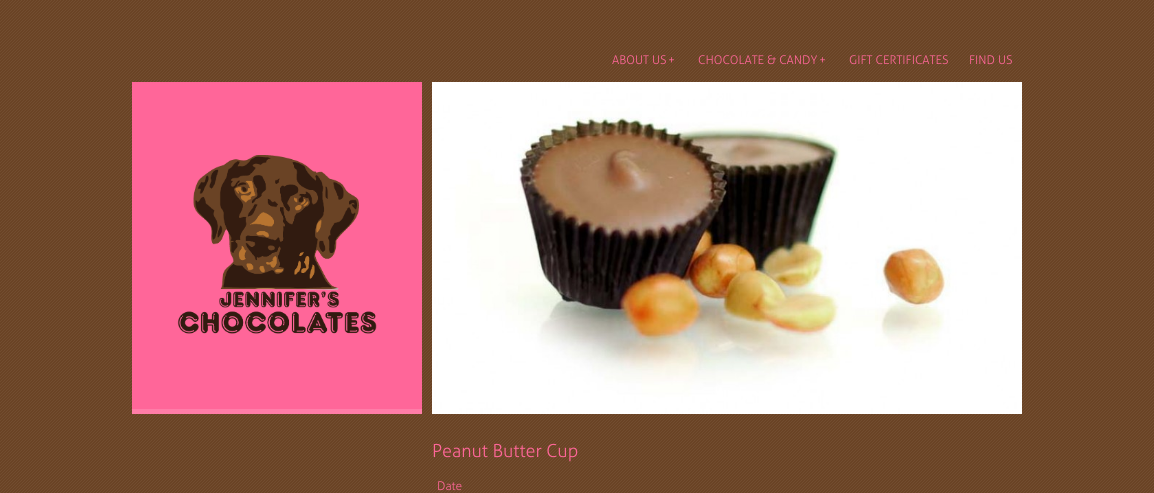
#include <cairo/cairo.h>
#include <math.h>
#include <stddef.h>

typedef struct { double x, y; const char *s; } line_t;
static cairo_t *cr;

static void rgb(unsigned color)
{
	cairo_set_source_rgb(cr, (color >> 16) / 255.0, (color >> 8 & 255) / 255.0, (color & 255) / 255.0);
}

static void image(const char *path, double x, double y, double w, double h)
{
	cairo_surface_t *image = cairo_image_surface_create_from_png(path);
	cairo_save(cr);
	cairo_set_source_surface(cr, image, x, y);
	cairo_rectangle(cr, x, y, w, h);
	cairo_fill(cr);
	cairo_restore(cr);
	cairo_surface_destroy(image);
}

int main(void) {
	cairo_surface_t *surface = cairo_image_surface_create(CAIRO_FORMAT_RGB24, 1154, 493);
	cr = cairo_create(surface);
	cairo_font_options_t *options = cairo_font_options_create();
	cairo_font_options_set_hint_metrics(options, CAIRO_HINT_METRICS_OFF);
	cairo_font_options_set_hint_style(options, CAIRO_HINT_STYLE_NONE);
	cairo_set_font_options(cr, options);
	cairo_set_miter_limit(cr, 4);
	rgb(0x6a4325);
	cairo_paint(cr);
	image("img/1.png", 0, 0, 1154, 493);
	rgb(0xff6699);
	cairo_rectangle(cr, 132, 82, 290, 327);
	cairo_fill(cr);
	rgb(0xff7da8);
	cairo_rectangle(cr, 132, 409, 290, 5);
	cairo_fill(cr);
	image("img/2.png", 177, 155, 200, 179);
	image("img/3.png", 432, 82, 590, 332);
	cairo_select_font_face(cr, "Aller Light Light", CAIRO_FONT_SLANT_NORMAL, CAIRO_FONT_WEIGHT_NORMAL);
	cairo_set_font_size(cr, 12);
	rgb(0xff6699);
	{
		static const line_t items[] = {
			{612, 64, "ABOUT US"},
			{668, 64, "+"},
			{698, 64, "CHOCOLATE & CANDY"},
			{819, 64, "+"},
			{849, 64, "GIFT CERTIFICATES"},
			{969, 64, "FIND US"},
		};
		for (size_t i = 0; i < sizeof items / sizeof *items; i++) {
			cairo_move_to(cr, items[i].x, items[i].y);
			cairo_show_text(cr, items[i].s);
		}
	}
	cairo_set_font_size(cr, 18);
	cairo_move_to(cr, 432, 457);
	cairo_show_text(cr, "Peanut Butter Cup");
	cairo_set_font_size(cr, 12);
	cairo_move_to(cr, 437, 490);
	cairo_show_text(cr, "Date");
	cairo_surface_write_to_png(surface, "page.png");
	cairo_font_options_destroy(options);
	cairo_destroy(cr);
	cairo_surface_destroy(surface);
	return 0;
}
